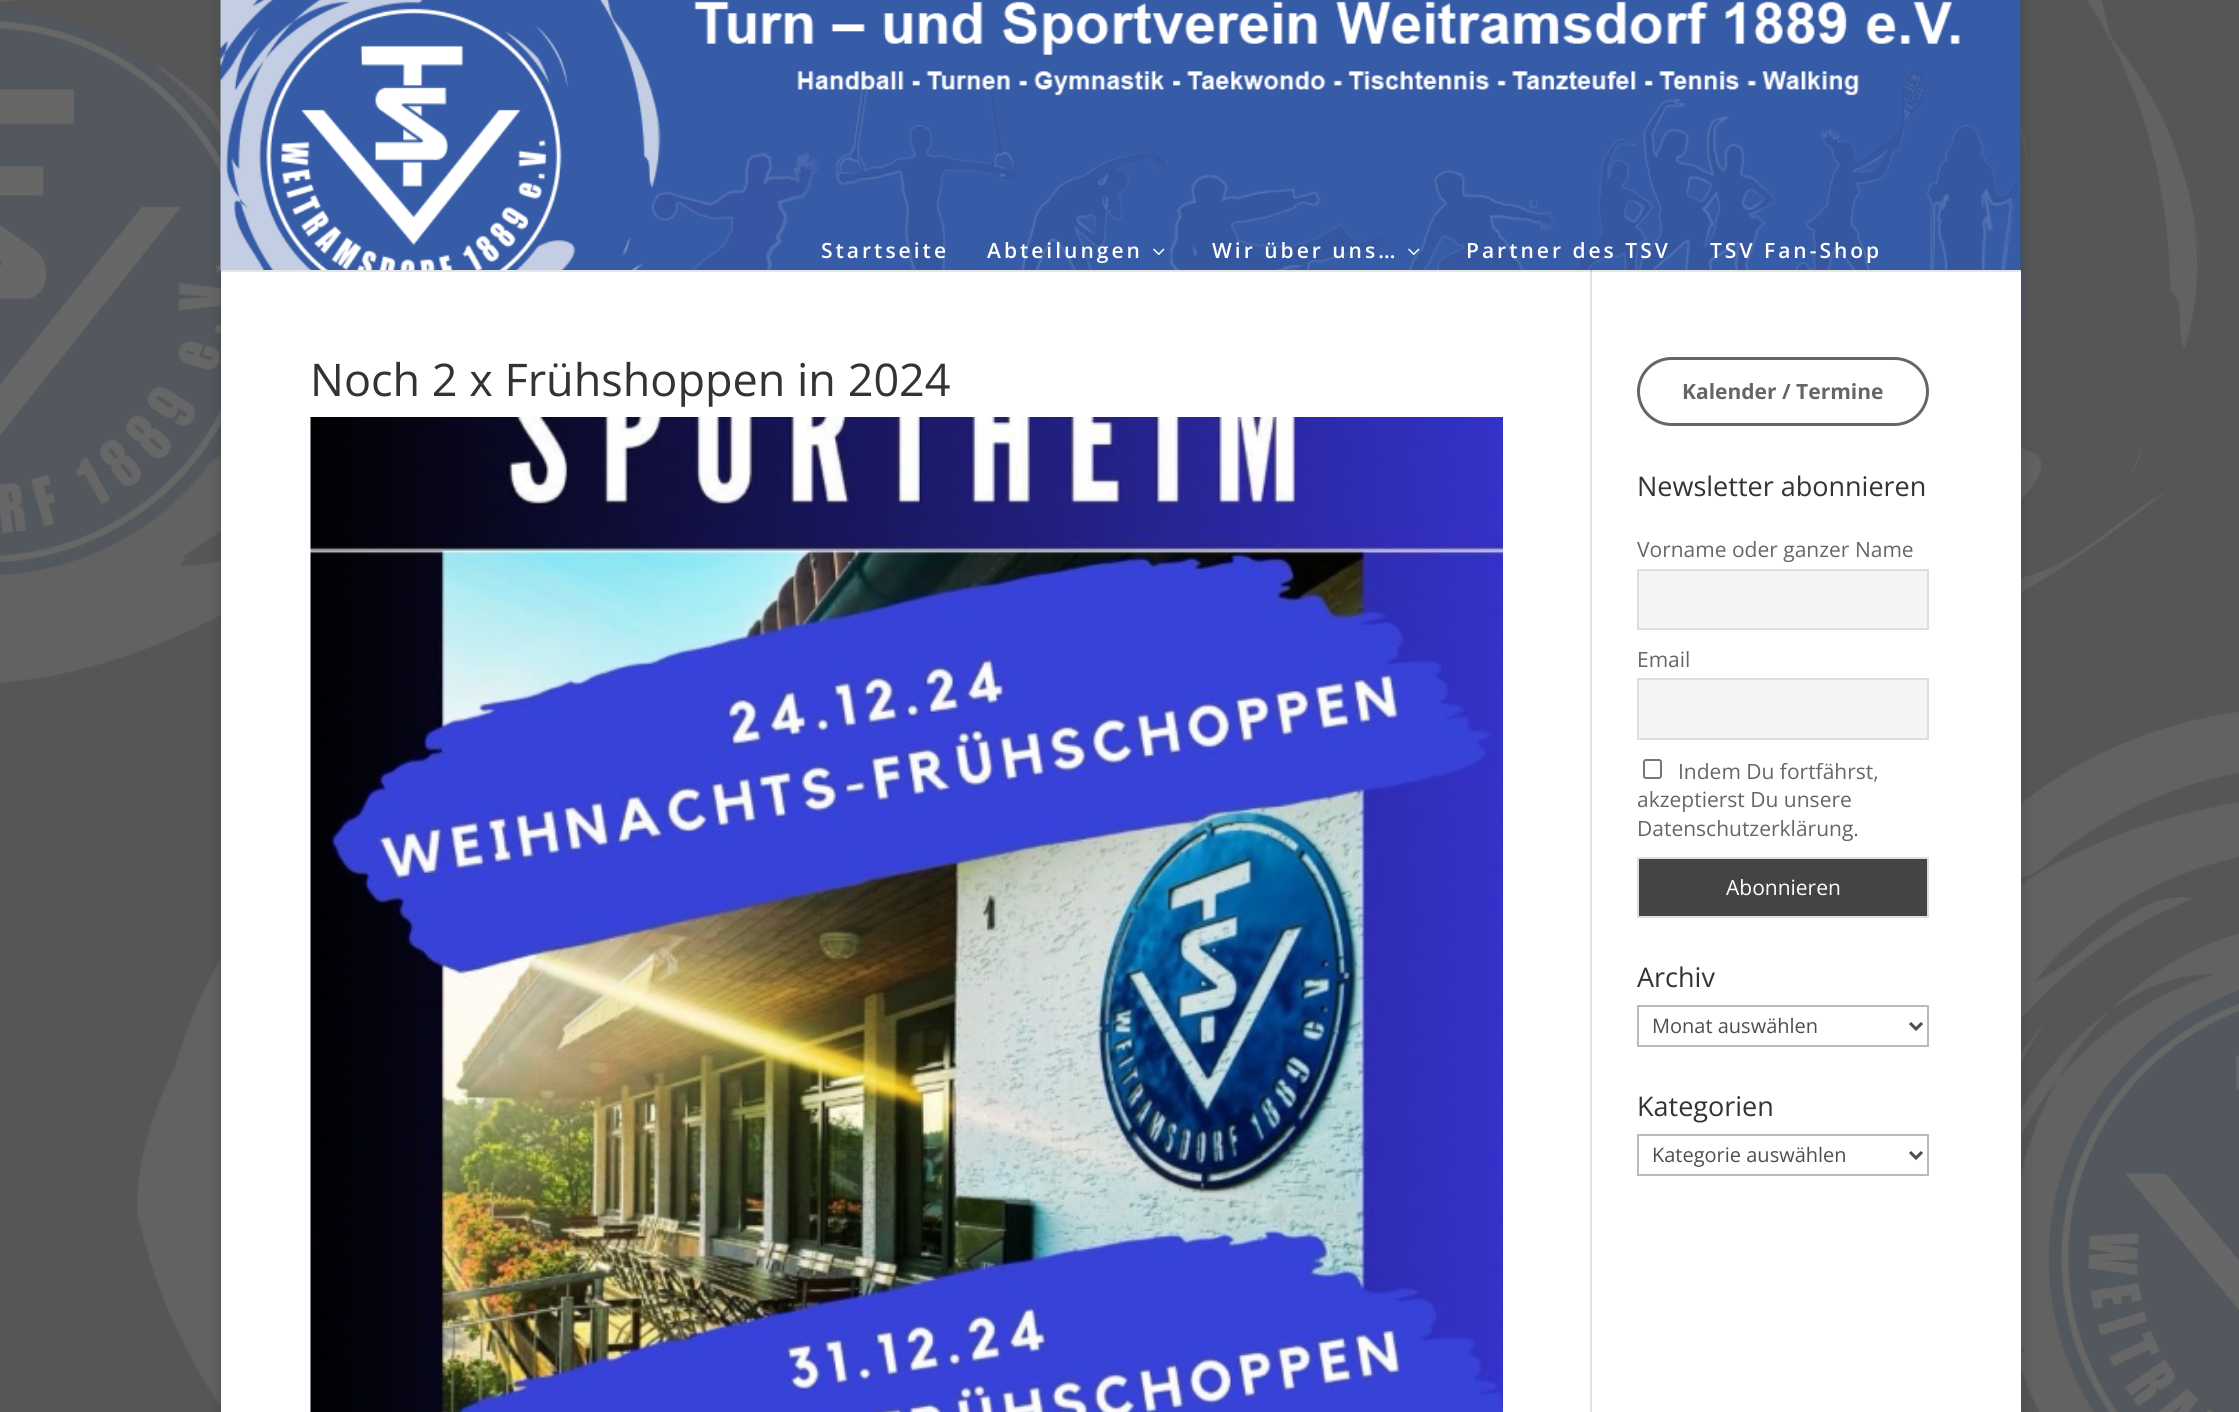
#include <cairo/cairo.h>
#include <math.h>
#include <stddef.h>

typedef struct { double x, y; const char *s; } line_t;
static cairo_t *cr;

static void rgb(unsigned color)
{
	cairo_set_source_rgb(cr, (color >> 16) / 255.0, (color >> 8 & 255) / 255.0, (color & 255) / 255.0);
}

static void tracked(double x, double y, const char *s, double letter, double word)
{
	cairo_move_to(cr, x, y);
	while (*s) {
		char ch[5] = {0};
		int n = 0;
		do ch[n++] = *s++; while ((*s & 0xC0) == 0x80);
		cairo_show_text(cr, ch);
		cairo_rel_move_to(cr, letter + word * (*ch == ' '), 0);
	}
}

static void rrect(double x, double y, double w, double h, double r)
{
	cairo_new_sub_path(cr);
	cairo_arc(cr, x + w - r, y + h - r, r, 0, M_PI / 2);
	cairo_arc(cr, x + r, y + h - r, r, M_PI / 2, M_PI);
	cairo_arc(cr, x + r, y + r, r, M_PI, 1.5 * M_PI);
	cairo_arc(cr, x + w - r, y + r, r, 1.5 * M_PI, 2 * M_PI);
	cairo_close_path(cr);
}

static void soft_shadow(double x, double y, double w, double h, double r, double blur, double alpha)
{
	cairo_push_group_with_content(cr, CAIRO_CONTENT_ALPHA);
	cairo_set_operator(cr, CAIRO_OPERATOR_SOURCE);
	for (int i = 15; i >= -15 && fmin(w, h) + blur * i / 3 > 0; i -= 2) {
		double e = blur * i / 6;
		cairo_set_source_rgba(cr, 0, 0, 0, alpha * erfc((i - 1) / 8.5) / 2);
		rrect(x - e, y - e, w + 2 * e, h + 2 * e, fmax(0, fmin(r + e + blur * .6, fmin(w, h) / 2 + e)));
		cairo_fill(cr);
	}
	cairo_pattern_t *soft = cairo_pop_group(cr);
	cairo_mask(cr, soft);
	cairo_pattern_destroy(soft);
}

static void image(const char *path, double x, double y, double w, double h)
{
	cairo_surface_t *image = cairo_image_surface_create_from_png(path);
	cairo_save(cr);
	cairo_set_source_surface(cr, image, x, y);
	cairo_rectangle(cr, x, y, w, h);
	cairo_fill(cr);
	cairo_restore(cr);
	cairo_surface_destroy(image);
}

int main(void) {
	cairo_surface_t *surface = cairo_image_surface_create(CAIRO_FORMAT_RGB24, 2239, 1412);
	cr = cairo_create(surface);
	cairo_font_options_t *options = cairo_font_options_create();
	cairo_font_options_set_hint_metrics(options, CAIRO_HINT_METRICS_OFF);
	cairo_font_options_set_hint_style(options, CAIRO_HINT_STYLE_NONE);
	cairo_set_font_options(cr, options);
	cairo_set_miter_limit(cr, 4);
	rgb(0xffffff);
	cairo_paint(cr);
	image("img/1.png", 0, 0, 2239, 1412);
	rgb(0x000000);
	soft_shadow(221, 0, 1800, 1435, 0, 7.5, 0.2);
	rgb(0xffffff);
	cairo_rectangle(cr, 221, 270, 1800, 1142);
	cairo_fill(cr);
	rgb(0xe2e2e2);
	cairo_rectangle(cr, 1590, 270, 2, 1142);
	cairo_fill(cr);
	cairo_set_source_rgba(cr, 0, 0, 0, 0.1);
	cairo_new_path(cr);
	cairo_move_to(cr, 221, 270);
	cairo_line_to(cr, 221, 272);
	cairo_line_to(cr, 2021, 272);
	cairo_line_to(cr, 2021, 2);
	cairo_line_to(cr, 2020, 2);
	cairo_line_to(cr, 2020, 270);
	cairo_close_path(cr);
	cairo_fill(cr);
	image("img/2.png", 220, 0, 1801, 270);
	image("img/3.png", 1153, 248, 12, 7);
	image("img/4.png", 1408, 248, 12, 7);
	image("img/5.png", 310, 417, 1193, 995);
	rrect(1638.5, 358.5, 289, 66, 33);
	rgb(0x666666);
	cairo_set_line_width(cr, 3);
	cairo_stroke(cr);
	rgb(0xf4f4f4);
	cairo_rectangle(cr, 1638, 570, 290, 59);
	cairo_fill_preserve(cr);
	rgb(0xdddddd);
	cairo_set_line_width(cr, 2);
	cairo_stroke(cr);
	rgb(0xf4f4f4);
	cairo_rectangle(cr, 1638, 679, 290, 60);
	cairo_fill_preserve(cr);
	rgb(0xdddddd);
	cairo_stroke(cr);
	rrect(1644, 760, 17, 18, 2);
	rgb(0x767676);
	cairo_stroke(cr);
	rgb(0x444444);
	cairo_rectangle(cr, 1638, 858, 290, 59);
	cairo_fill_preserve(cr);
	rgb(0xdddddd);
	cairo_stroke(cr);
	cairo_rectangle(cr, 1638, 1006, 290, 40);
	rgb(0xbbbbbb);
	cairo_stroke(cr);
	cairo_new_path(cr);
	cairo_move_to(cr, 1910, 1023);
	cairo_line_to(cr, 1916, 1029);
	cairo_line_to(cr, 1922, 1023);
	rgb(0x4e4e4e);
	cairo_set_line_width(cr, 3);
	cairo_stroke(cr);
	cairo_rectangle(cr, 1638, 1135, 290, 40);
	rgb(0xbbbbbb);
	cairo_set_line_width(cr, 2);
	cairo_stroke(cr);
	cairo_new_path(cr);
	cairo_move_to(cr, 1910, 1152);
	cairo_line_to(cr, 1916, 1158);
	cairo_line_to(cr, 1922, 1152);
	rgb(0x4e4e4e);
	cairo_set_line_width(cr, 3);
	cairo_stroke(cr);
	cairo_select_font_face(cr, "Open Sans SemiBold", CAIRO_FONT_SLANT_NORMAL, CAIRO_FONT_WEIGHT_NORMAL);
	cairo_set_font_size(cr, 21);
	rgb(0xffffff);
	{
		static const line_t items[] = {
			{821, 258, "Startseite"},
			{987, 258, "Abteilungen"},
			{1212, 258, "Wir über uns…"},
			{1466, 258, "Partner des TSV"},
			{1710, 258, "TSV Fan-Shop"},
		};
		for (size_t i = 0; i < sizeof items / sizeof *items; i++) {
			tracked(items[i].x, items[i].y, items[i].s, 3, 0);
		}
	}
	cairo_select_font_face(cr, "Open Sans", CAIRO_FONT_SLANT_NORMAL, CAIRO_FONT_WEIGHT_NORMAL);
	cairo_set_font_size(cr, 45);
	rgb(0x333333);
	cairo_move_to(cr, 310, 396);
	cairo_show_text(cr, "Noch 2 x Frühshoppen in 2024");
	cairo_select_font_face(cr, "Open Sans", CAIRO_FONT_SLANT_NORMAL, CAIRO_FONT_WEIGHT_BOLD);
	cairo_set_font_size(cr, 21);
	rgb(0x666666);
	cairo_move_to(cr, 1682, 399);
	cairo_show_text(cr, "Kalender / Termine");
	cairo_select_font_face(cr, "Open Sans", CAIRO_FONT_SLANT_NORMAL, CAIRO_FONT_WEIGHT_NORMAL);
	cairo_set_font_size(cr, 27);
	rgb(0x333333);
	cairo_move_to(cr, 1637, 496);
	cairo_show_text(cr, "Newsletter abonnieren");
	cairo_set_font_size(cr, 21);
	rgb(0x666666);
	{
		static const line_t items[] = {
			{1637, 557, "Vorname oder ganzer Name"},
			{1637, 667, "Email"},
			{1678, 779, "Indem Du fortfährst,"},
			{1637, 807, "akzeptierst Du unsere"},
			{1637, 836, "Datenschutzerklärung."},
		};
		for (size_t i = 0; i < sizeof items / sizeof *items; i++) {
			cairo_move_to(cr, items[i].x, items[i].y);
			cairo_show_text(cr, items[i].s);
		}
	}
	rgb(0xffffff);
	cairo_move_to(cr, 1726, 895);
	cairo_show_text(cr, "Abonnieren");
	cairo_set_font_size(cr, 27);
	rgb(0x333333);
	cairo_move_to(cr, 1637, 987);
	cairo_show_text(cr, "Archiv");
	cairo_set_font_size(cr, 20);
	rgb(0x4e4e4e);
	cairo_move_to(cr, 1652, 1033);
	cairo_show_text(cr, "Monat auswählen");
	cairo_set_font_size(cr, 27);
	rgb(0x333333);
	cairo_move_to(cr, 1637, 1116);
	cairo_show_text(cr, "Kategorien");
	cairo_set_font_size(cr, 20);
	rgb(0x4e4e4e);
	cairo_move_to(cr, 1652, 1162);
	cairo_show_text(cr, "Kategorie auswählen");
	cairo_surface_write_to_png(surface, "page.png");
	cairo_font_options_destroy(options);
	cairo_destroy(cr);
	cairo_surface_destroy(surface);
	return 0;
}
